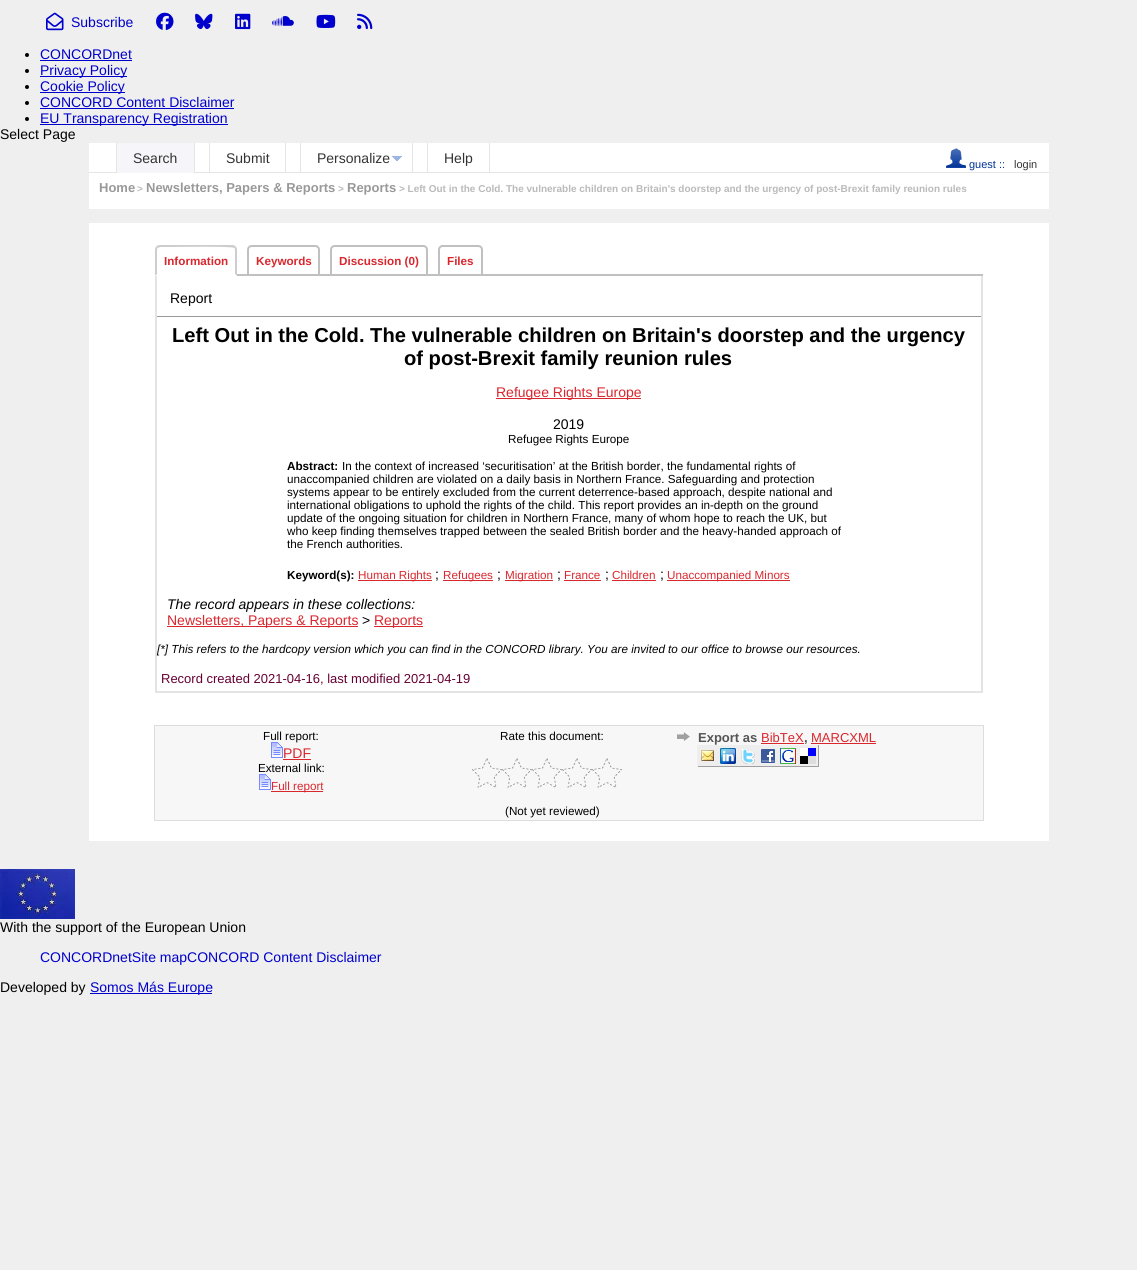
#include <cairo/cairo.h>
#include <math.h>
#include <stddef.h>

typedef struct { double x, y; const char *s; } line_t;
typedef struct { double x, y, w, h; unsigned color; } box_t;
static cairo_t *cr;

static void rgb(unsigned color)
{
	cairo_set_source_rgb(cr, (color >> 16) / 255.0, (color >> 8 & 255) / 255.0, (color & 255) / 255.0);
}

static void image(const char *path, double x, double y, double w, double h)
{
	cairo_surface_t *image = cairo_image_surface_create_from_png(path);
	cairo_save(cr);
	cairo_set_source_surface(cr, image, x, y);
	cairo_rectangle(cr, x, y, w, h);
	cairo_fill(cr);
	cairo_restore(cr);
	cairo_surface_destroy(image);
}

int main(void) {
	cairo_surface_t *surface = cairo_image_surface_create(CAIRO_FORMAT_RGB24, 1137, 1270);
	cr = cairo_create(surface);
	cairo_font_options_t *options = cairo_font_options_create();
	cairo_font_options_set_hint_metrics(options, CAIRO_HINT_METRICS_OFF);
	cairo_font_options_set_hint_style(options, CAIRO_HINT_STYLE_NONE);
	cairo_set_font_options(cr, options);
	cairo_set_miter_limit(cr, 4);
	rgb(0xefefef);
	cairo_paint(cr);
	image("img/1.png", 46, 12, 18, 19);
	image("img/2.png", 156, 12, 18, 18);
	image("img/3.png", 195, 13, 18, 17);
	image("img/4.png", 235, 13, 16, 17);
	image("img/5.png", 272, 16, 22, 10);
	image("img/6.png", 316, 14, 20, 14);
	image("img/7.png", 357, 13, 16, 17);
	rgb(0x000000);
	cairo_arc(cr, 27, 55, 2, 0, 2 * M_PI);
	cairo_fill(cr);
	rgb(0x0000cc);
	cairo_rectangle(cr, 40, 60, 92, 1);
	cairo_fill(cr);
	rgb(0x000000);
	cairo_arc(cr, 27, 71, 2, 0, 2 * M_PI);
	cairo_fill(cr);
	rgb(0x0000cc);
	cairo_rectangle(cr, 40, 76, 87, 1);
	cairo_fill(cr);
	rgb(0x000000);
	cairo_arc(cr, 27, 87, 2, 0, 2 * M_PI);
	cairo_fill(cr);
	rgb(0x0000cc);
	cairo_rectangle(cr, 40, 92, 85, 1);
	cairo_fill(cr);
	rgb(0x000000);
	cairo_arc(cr, 27, 103, 2, 0, 2 * M_PI);
	cairo_fill(cr);
	rgb(0x0000cc);
	cairo_rectangle(cr, 40, 108, 194, 1);
	cairo_fill(cr);
	rgb(0x000000);
	cairo_arc(cr, 27, 119, 2, 0, 2 * M_PI);
	cairo_fill(cr);
	{
		static const box_t items[] = {
			{40, 124, 188, 1, 0x0000cc},
			{89, 143, 960, 66, 0xffffff},
			{117, 143, 77, 30, 0xf6f6fa},
			{194, 143, 1, 30, 0xe5e5e5},
			{116, 143, 1, 30, 0xe5e5e5},
			{285, 143, 1, 30, 0xe5e5e5},
			{209, 172, 91, 1, 0xe5e5e5},
			{209, 143, 1, 30, 0xe5e5e5},
			{412, 143, 1, 30, 0xe5e5e5},
			{300, 172, 127, 1, 0xe5e5e5},
			{300, 143, 1, 30, 0xe5e5e5},
		};
		for (size_t i = 0; i < sizeof items / sizeof *items; i++) {
			rgb(items[i].color);
			cairo_rectangle(cr, items[i].x, items[i].y, items[i].w, items[i].h);
			cairo_fill(cr);
		}
	}
	image("img/8.png", 392, 156, 10, 5);
	{
		static const box_t items[] = {
			{489, 143, 1, 30, 0xe5e5e5},
			{427, 172, 622, 1, 0xe5e5e5},
			{427, 143, 1, 30, 0xe5e5e5},
		};
		for (size_t i = 0; i < sizeof items / sizeof *items; i++) {
			rgb(items[i].color);
			cairo_rectangle(cr, items[i].x, items[i].y, items[i].w, items[i].h);
			cairo_fill(cr);
		}
	}
	image("img/9.png", 946, 148, 20, 20);
	{
		static const box_t items[] = {
			{89, 172, 27, 1, 0xe5e5e5},
			{195, 172, 14, 1, 0xe5e5e5},
			{89, 223, 960, 618, 0xffffff},
			{237, 274, 746, 2, 0xc0c0c0},
		};
		for (size_t i = 0; i < sizeof items / sizeof *items; i++) {
			rgb(items[i].color);
			cairo_rectangle(cr, items[i].x, items[i].y, items[i].w, items[i].h);
			cairo_fill(cr);
		}
	}
	rgb(0xcdcdcd);
	cairo_new_path(cr);
	cairo_move_to(cr, 160, 245);
	cairo_curve_to(cr, 158, 245, 157, 246, 156, 246);
	cairo_line_to(cr, 158, 248);
	cairo_line_to(cr, 160, 247);
	cairo_line_to(cr, 172, 247);
	cairo_curve_to(cr, 179, 247, 232, 246, 234, 248);
	cairo_line_to(cr, 236, 246);
	cairo_curve_to(cr, 235, 246, 234, 245, 232, 245);
	cairo_close_path(cr);
	cairo_fill(cr);
	cairo_new_path(cr);
	cairo_move_to(cr, 237, 276);
	cairo_line_to(cr, 237, 250);
	cairo_curve_to(cr, 237, 248.5, 236.5, 247, 235.5, 246.5);
	cairo_line_to(cr, 234, 248);
	cairo_curve_to(cr, 235, 248, 235, 249, 235, 250);
	cairo_line_to(cr, 235, 274);
	cairo_close_path(cr);
	cairo_fill(cr);
	rgb(0xffffff);
	cairo_new_path(cr);
	cairo_move_to(cr, 237, 276);
	cairo_line_to(cr, 235, 274);
	cairo_line_to(cr, 157, 274);
	cairo_line_to(cr, 155, 276);
	cairo_close_path(cr);
	cairo_fill(cr);
	rgb(0xcdcdcd);
	cairo_new_path(cr);
	cairo_move_to(cr, 155, 276);
	cairo_line_to(cr, 157, 274);
	cairo_line_to(cr, 157, 250);
	cairo_curve_to(cr, 157, 249, 157, 248, 158, 248);
	cairo_line_to(cr, 156.5, 246.5);
	cairo_curve_to(cr, 155.5, 247, 155, 248.5, 155, 250);
	cairo_close_path(cr);
	cairo_fill(cr);
	rgb(0xc0c0c0);
	cairo_set_fill_rule(cr, CAIRO_FILL_RULE_EVEN_ODD);
	cairo_new_path(cr);
	cairo_move_to(cr, 252, 245);
	cairo_line_to(cr, 315, 245);
	cairo_curve_to(cr, 318, 245, 320, 247, 320, 250);
	cairo_line_to(cr, 320, 274);
	cairo_line_to(cr, 247, 274);
	cairo_line_to(cr, 247, 250);
	cairo_curve_to(cr, 247, 247, 249, 245, 252, 245);
	cairo_close_path(cr);
	cairo_move_to(cr, 252, 247);
	cairo_line_to(cr, 315, 247);
	cairo_curve_to(cr, 317, 247, 318, 248, 318, 250);
	cairo_line_to(cr, 318, 274);
	cairo_line_to(cr, 249, 274);
	cairo_line_to(cr, 249, 250);
	cairo_curve_to(cr, 249, 248, 250, 247, 252, 247);
	cairo_close_path(cr);
	cairo_fill(cr);
	cairo_new_path(cr);
	cairo_move_to(cr, 335, 245);
	cairo_line_to(cr, 423, 245);
	cairo_curve_to(cr, 426, 245, 428, 247, 428, 250);
	cairo_line_to(cr, 428, 274);
	cairo_line_to(cr, 330, 274);
	cairo_line_to(cr, 330, 250);
	cairo_curve_to(cr, 330, 247, 332, 245, 335, 245);
	cairo_close_path(cr);
	cairo_move_to(cr, 335, 247);
	cairo_line_to(cr, 423, 247);
	cairo_curve_to(cr, 425, 247, 426, 248, 426, 250);
	cairo_line_to(cr, 426, 274);
	cairo_line_to(cr, 332, 274);
	cairo_line_to(cr, 332, 250);
	cairo_curve_to(cr, 332, 248, 333, 247, 335, 247);
	cairo_close_path(cr);
	cairo_fill(cr);
	cairo_new_path(cr);
	cairo_move_to(cr, 443, 245);
	cairo_line_to(cr, 478, 245);
	cairo_curve_to(cr, 481, 245, 483, 247, 483, 250);
	cairo_line_to(cr, 483, 274);
	cairo_line_to(cr, 438, 274);
	cairo_line_to(cr, 438, 250);
	cairo_curve_to(cr, 438, 247, 440, 245, 443, 245);
	cairo_close_path(cr);
	cairo_move_to(cr, 443, 247);
	cairo_line_to(cr, 478, 247);
	cairo_curve_to(cr, 480, 247, 481, 248, 481, 250);
	cairo_line_to(cr, 481, 274);
	cairo_line_to(cr, 440, 274);
	cairo_line_to(cr, 440, 250);
	cairo_curve_to(cr, 440, 248, 441, 247, 443, 247);
	cairo_close_path(cr);
	cairo_fill(cr);
	{
		static const box_t items[] = {
			{981, 276, 2, 417, 0xe4e4e4},
			{155, 691, 828, 2, 0xe4e4e4},
			{155, 276, 2, 417, 0xe4e4e4},
			{157, 316, 824, 1, 0x999999},
			{496, 398, 145, 1, 0xd9272e},
			{358, 580, 74, 1, 0xd9272e},
			{443, 580, 50, 1, 0xd9272e},
			{505, 580, 48, 1, 0xd9272e},
			{564, 580, 37, 1, 0xd9272e},
			{612, 580, 44, 1, 0xd9272e},
			{667, 580, 123, 1, 0xd9272e},
			{167, 626, 191, 1, 0xd9272e},
			{374, 626, 49, 1, 0xd9272e},
		};
		for (size_t i = 0; i < sizeof items / sizeof *items; i++) {
			rgb(items[i].color);
			cairo_rectangle(cr, items[i].x, items[i].y, items[i].w, items[i].h);
			cairo_fill(cr);
		}
	}
	rgb(0xf7f7f7);
	cairo_rectangle(cr, 154.5, 725.5, 829, 95);
	cairo_fill_preserve(cr);
	rgb(0xdddddd);
	cairo_set_line_width(cr, 1);
	cairo_stroke(cr);
	rgb(0xd9272e);
	cairo_rectangle(cr, 283, 759, 28, 1);
	cairo_fill(cr);
	image("img/10.png", 259, 774, 12, 16);
	cairo_rectangle(cr, 271, 791, 52, 1);
	cairo_fill(cr);
	image("img/11.png", 472, 758, 30, 30);
	image("img/11.png", 502, 758, 30, 30);
	image("img/11.png", 532, 758, 30, 30);
	image("img/11.png", 562, 758, 30, 30);
	image("img/11.png", 592, 758, 30, 30);
	image("img/12.png", 677, 732, 13, 10);
	{
		static const box_t items[] = {
			{761, 743, 43, 1, 0xd9272e},
			{811, 743, 65, 1, 0xd9272e},
			{698, 745, 120, 21, 0xeeeeee},
			{818, 745, 1, 22, 0x9f9f9f},
			{697, 766, 122, 1, 0x9f9f9f},
			{697, 745, 1, 22, 0xeeeeee},
		};
		for (size_t i = 0; i < sizeof items / sizeof *items; i++) {
			rgb(items[i].color);
			cairo_rectangle(cr, items[i].x, items[i].y, items[i].w, items[i].h);
			cairo_fill(cr);
		}
	}
	image("img/13.png", 701, 750, 13, 11);
	image("img/14.png", 720, 748, 16, 16);
	image("img/15.png", 741, 748, 14, 16);
	image("img/16.png", 761, 749, 14, 14);
	image("img/17.png", 780, 748, 16, 16);
	image("img/18.png", 800, 748, 16, 16);
	image("img/19.png", 0, 869, 75, 50);
	rgb(0x0000cc);
	cairo_rectangle(cr, 90, 993, 122, 1);
	cairo_fill(cr);
	cairo_select_font_face(cr, "Liberation Sans", CAIRO_FONT_SLANT_NORMAL, CAIRO_FONT_WEIGHT_NORMAL);
	cairo_set_font_size(cr, 14);
	{
		static const line_t items[] = {
			{71, 27, "Subscribe"},
			{40, 59, "CONCORDnet"},
			{40, 75, "Privacy Policy"},
			{40, 91, "Cookie Policy"},
			{40, 107, "CONCORD Content Disclaimer"},
			{40, 123, "EU Transparency Registration"},
		};
		for (size_t i = 0; i < sizeof items / sizeof *items; i++) {
			cairo_move_to(cr, items[i].x, items[i].y);
			cairo_show_text(cr, items[i].s);
		}
	}
	rgb(0x000000);
	cairo_move_to(cr, 0, 139);
	cairo_show_text(cr, "Select Page");
	rgb(0x333333);
	{
		static const line_t items[] = {
			{133, 163, "Search"},
			{226, 163, "Submit"},
			{317, 163, "Personalize"},
			{444, 163, "Help"},
		};
		for (size_t i = 0; i < sizeof items / sizeof *items; i++) {
			cairo_move_to(cr, items[i].x, items[i].y);
			cairo_show_text(cr, items[i].s);
		}
	}
	cairo_set_font_size(cr, 11);
	rgb(0x003399);
	cairo_move_to(cr, 969, 168);
	cairo_show_text(cr, "guest ::");
	rgb(0x333333);
	cairo_move_to(cr, 1014, 168);
	cairo_show_text(cr, "login");
	cairo_select_font_face(cr, "Liberation Sans", CAIRO_FONT_SLANT_NORMAL, CAIRO_FONT_WEIGHT_BOLD);
	cairo_set_font_size(cr, 13);
	rgb(0x999999);
	cairo_move_to(cr, 99, 192);
	cairo_show_text(cr, "Home");
	cairo_set_font_size(cr, 10);
	rgb(0xbababa);
	cairo_move_to(cr, 137, 192);
	cairo_show_text(cr, ">");
	cairo_set_font_size(cr, 13);
	rgb(0x999999);
	cairo_move_to(cr, 146, 192);
	cairo_show_text(cr, "Newsletters, Papers & Reports");
	cairo_set_font_size(cr, 10);
	rgb(0xbababa);
	cairo_move_to(cr, 338, 192);
	cairo_show_text(cr, ">");
	cairo_set_font_size(cr, 13);
	rgb(0x999999);
	cairo_move_to(cr, 347, 192);
	cairo_show_text(cr, "Reports");
	cairo_set_font_size(cr, 10);
	rgb(0xbababa);
	cairo_move_to(cr, 399, 192);
	cairo_show_text(cr, "> Left Out in the Cold. The vulnerable children on Britain's doorstep and the urgency of post-Brexit family reunion rules");
	cairo_set_font_size(cr, 11.67);
	rgb(0xd9272e);
	{
		static const line_t items[] = {
			{164, 265, "Information"},
			{256, 265, "Keywords"},
			{339, 265, "Discussion (0)"},
			{447, 265, "Files"},
		};
		for (size_t i = 0; i < sizeof items / sizeof *items; i++) {
			cairo_move_to(cr, items[i].x, items[i].y);
			cairo_show_text(cr, items[i].s);
		}
	}
	cairo_select_font_face(cr, "Liberation Sans", CAIRO_FONT_SLANT_NORMAL, CAIRO_FONT_WEIGHT_NORMAL);
	cairo_set_font_size(cr, 14);
	rgb(0x000000);
	cairo_move_to(cr, 170, 303);
	cairo_show_text(cr, "Report");
	cairo_select_font_face(cr, "Liberation Sans", CAIRO_FONT_SLANT_NORMAL, CAIRO_FONT_WEIGHT_BOLD);
	cairo_set_font_size(cr, 20.15);
	cairo_move_to(cr, 172, 342);
	cairo_show_text(cr, "Left Out in the Cold. The vulnerable children on Britain's doorstep and the urgency");
	cairo_move_to(cr, 404, 365);
	cairo_show_text(cr, "of post-Brexit family reunion rules");
	cairo_select_font_face(cr, "Liberation Sans", CAIRO_FONT_SLANT_NORMAL, CAIRO_FONT_WEIGHT_NORMAL);
	cairo_set_font_size(cr, 14);
	rgb(0xd9272e);
	cairo_move_to(cr, 496, 397);
	cairo_show_text(cr, "Refugee Rights Europe");
	rgb(0x000000);
	cairo_move_to(cr, 553, 429);
	cairo_show_text(cr, "2019");
	cairo_set_font_size(cr, 11.67);
	cairo_move_to(cr, 508, 443);
	cairo_show_text(cr, "Refugee Rights Europe");
	cairo_select_font_face(cr, "Liberation Sans", CAIRO_FONT_SLANT_NORMAL, CAIRO_FONT_WEIGHT_BOLD);
	cairo_move_to(cr, 287, 470);
	cairo_show_text(cr, "Abstract:");
	cairo_select_font_face(cr, "Liberation Sans", CAIRO_FONT_SLANT_NORMAL, CAIRO_FONT_WEIGHT_NORMAL);
	{
		static const line_t items[] = {
			{342, 470, "In the context of increased ‘securitisation’ at the British border, the fundamental rights of"},
			{287, 483, "unaccompanied children are violated on a daily basis in Northern France. Safeguarding and protection"},
			{287, 496, "systems appear to be entirely excluded from the current deterrence-based approach, despite national and"},
			{287, 509, "international obligations to uphold the rights of the child. This report provides an in-depth on the ground"},
			{287, 522, "update of the ongoing situation for children in Northern France, many of whom hope to reach the UK, but"},
			{287, 535, "who keep finding themselves trapped between the sealed British border and the heavy-handed approach of"},
			{287, 548, "the French authorities."},
		};
		for (size_t i = 0; i < sizeof items / sizeof *items; i++) {
			cairo_move_to(cr, items[i].x, items[i].y);
			cairo_show_text(cr, items[i].s);
		}
	}
	cairo_select_font_face(cr, "Liberation Sans", CAIRO_FONT_SLANT_NORMAL, CAIRO_FONT_WEIGHT_BOLD);
	cairo_move_to(cr, 287, 579);
	cairo_show_text(cr, "Keyword(s):");
	cairo_select_font_face(cr, "Liberation Sans", CAIRO_FONT_SLANT_NORMAL, CAIRO_FONT_WEIGHT_NORMAL);
	rgb(0xd9272e);
	cairo_move_to(cr, 358, 579);
	cairo_show_text(cr, "Human Rights");
	cairo_set_font_size(cr, 14);
	rgb(0x000000);
	cairo_move_to(cr, 435, 579);
	cairo_show_text(cr, ";");
	cairo_set_font_size(cr, 11.67);
	rgb(0xd9272e);
	cairo_move_to(cr, 443, 579);
	cairo_show_text(cr, "Refugees");
	cairo_set_font_size(cr, 14);
	rgb(0x000000);
	cairo_move_to(cr, 497, 579);
	cairo_show_text(cr, ";");
	cairo_set_font_size(cr, 11.67);
	rgb(0xd9272e);
	cairo_move_to(cr, 505, 579);
	cairo_show_text(cr, "Migration");
	cairo_set_font_size(cr, 14);
	rgb(0x000000);
	cairo_move_to(cr, 557, 579);
	cairo_show_text(cr, ";");
	cairo_set_font_size(cr, 11.67);
	rgb(0xd9272e);
	cairo_move_to(cr, 564, 579);
	cairo_show_text(cr, "France");
	cairo_set_font_size(cr, 14);
	rgb(0x000000);
	cairo_move_to(cr, 605, 579);
	cairo_show_text(cr, ";");
	cairo_set_font_size(cr, 11.67);
	rgb(0xd9272e);
	cairo_move_to(cr, 612, 579);
	cairo_show_text(cr, "Children");
	cairo_set_font_size(cr, 14);
	rgb(0x000000);
	cairo_move_to(cr, 660, 579);
	cairo_show_text(cr, ";");
	cairo_set_font_size(cr, 11.67);
	rgb(0xd9272e);
	cairo_move_to(cr, 667, 579);
	cairo_show_text(cr, "Unaccompanied Minors");
	cairo_select_font_face(cr, "Liberation Sans", CAIRO_FONT_SLANT_ITALIC, CAIRO_FONT_WEIGHT_NORMAL);
	cairo_set_font_size(cr, 14);
	rgb(0x000000);
	cairo_move_to(cr, 167, 609);
	cairo_show_text(cr, "The record appears in these collections:");
	cairo_select_font_face(cr, "Liberation Sans", CAIRO_FONT_SLANT_NORMAL, CAIRO_FONT_WEIGHT_NORMAL);
	rgb(0xd9272e);
	cairo_move_to(cr, 167, 625);
	cairo_show_text(cr, "Newsletters, Papers & Reports");
	rgb(0x000000);
	cairo_move_to(cr, 362, 625);
	cairo_show_text(cr, ">");
	rgb(0xd9272e);
	cairo_move_to(cr, 374, 625);
	cairo_show_text(cr, "Reports");
	cairo_select_font_face(cr, "Liberation Sans", CAIRO_FONT_SLANT_ITALIC, CAIRO_FONT_WEIGHT_NORMAL);
	cairo_set_font_size(cr, 11.67);
	rgb(0x000000);
	cairo_move_to(cr, 157, 653);
	cairo_show_text(cr, "[*] This refers to the hardcopy version which you can find in the CONCORD library. You are invited to our office to browse our resources.");
	cairo_select_font_face(cr, "Liberation Sans", CAIRO_FONT_SLANT_NORMAL, CAIRO_FONT_WEIGHT_NORMAL);
	cairo_set_font_size(cr, 13);
	rgb(0x660033);
	cairo_move_to(cr, 161, 683);
	cairo_show_text(cr, "Record created 2021-04-16, last modified 2021-04-19");
	cairo_set_font_size(cr, 11.67);
	rgb(0x000000);
	cairo_move_to(cr, 263, 740);
	cairo_show_text(cr, "Full report:");
	image("img/10.png", 271, 742, 12, 16);
	cairo_set_font_size(cr, 14);
	rgb(0xd9272e);
	cairo_move_to(cr, 283, 758);
	cairo_show_text(cr, "PDF");
	cairo_set_font_size(cr, 11.67);
	rgb(0x000000);
	cairo_move_to(cr, 258, 772);
	cairo_show_text(cr, "External link:");
	rgb(0xd9272e);
	cairo_move_to(cr, 271, 790);
	cairo_show_text(cr, "Full report");
	rgb(0x000000);
	cairo_move_to(cr, 500, 740);
	cairo_show_text(cr, "Rate this document:");
	cairo_move_to(cr, 505, 815);
	cairo_show_text(cr, "(Not yet reviewed)");
	cairo_select_font_face(cr, "Liberation Sans", CAIRO_FONT_SLANT_NORMAL, CAIRO_FONT_WEIGHT_BOLD);
	cairo_set_font_size(cr, 13);
	rgb(0x555555);
	cairo_move_to(cr, 698, 742);
	cairo_show_text(cr, "Export as");
	cairo_select_font_face(cr, "Liberation Sans", CAIRO_FONT_SLANT_NORMAL, CAIRO_FONT_WEIGHT_NORMAL);
	rgb(0xd9272e);
	cairo_move_to(cr, 761, 742);
	cairo_show_text(cr, "BibTeX");
	cairo_select_font_face(cr, "Liberation Sans", CAIRO_FONT_SLANT_NORMAL, CAIRO_FONT_WEIGHT_BOLD);
	rgb(0x555555);
	cairo_move_to(cr, 804, 742);
	cairo_show_text(cr, ",");
	cairo_select_font_face(cr, "Liberation Sans", CAIRO_FONT_SLANT_NORMAL, CAIRO_FONT_WEIGHT_NORMAL);
	rgb(0xd9272e);
	cairo_move_to(cr, 811, 742);
	cairo_show_text(cr, "MARCXML");
	cairo_set_font_size(cr, 14);
	rgb(0x000000);
	cairo_move_to(cr, 0, 932);
	cairo_show_text(cr, "With the support of the European Union");
	rgb(0x0000cc);
	cairo_move_to(cr, 40, 962);
	cairo_show_text(cr, "CONCORDnetSite mapCONCORD Content Disclaimer");
	rgb(0x000000);
	cairo_move_to(cr, 0, 992);
	cairo_show_text(cr, "Developed by");
	rgb(0x0000cc);
	cairo_move_to(cr, 90, 992);
	cairo_show_text(cr, "Somos Más Europe");
	cairo_surface_write_to_png(surface, "page.png");
	cairo_font_options_destroy(options);
	cairo_destroy(cr);
	cairo_surface_destroy(surface);
	return 0;
}
